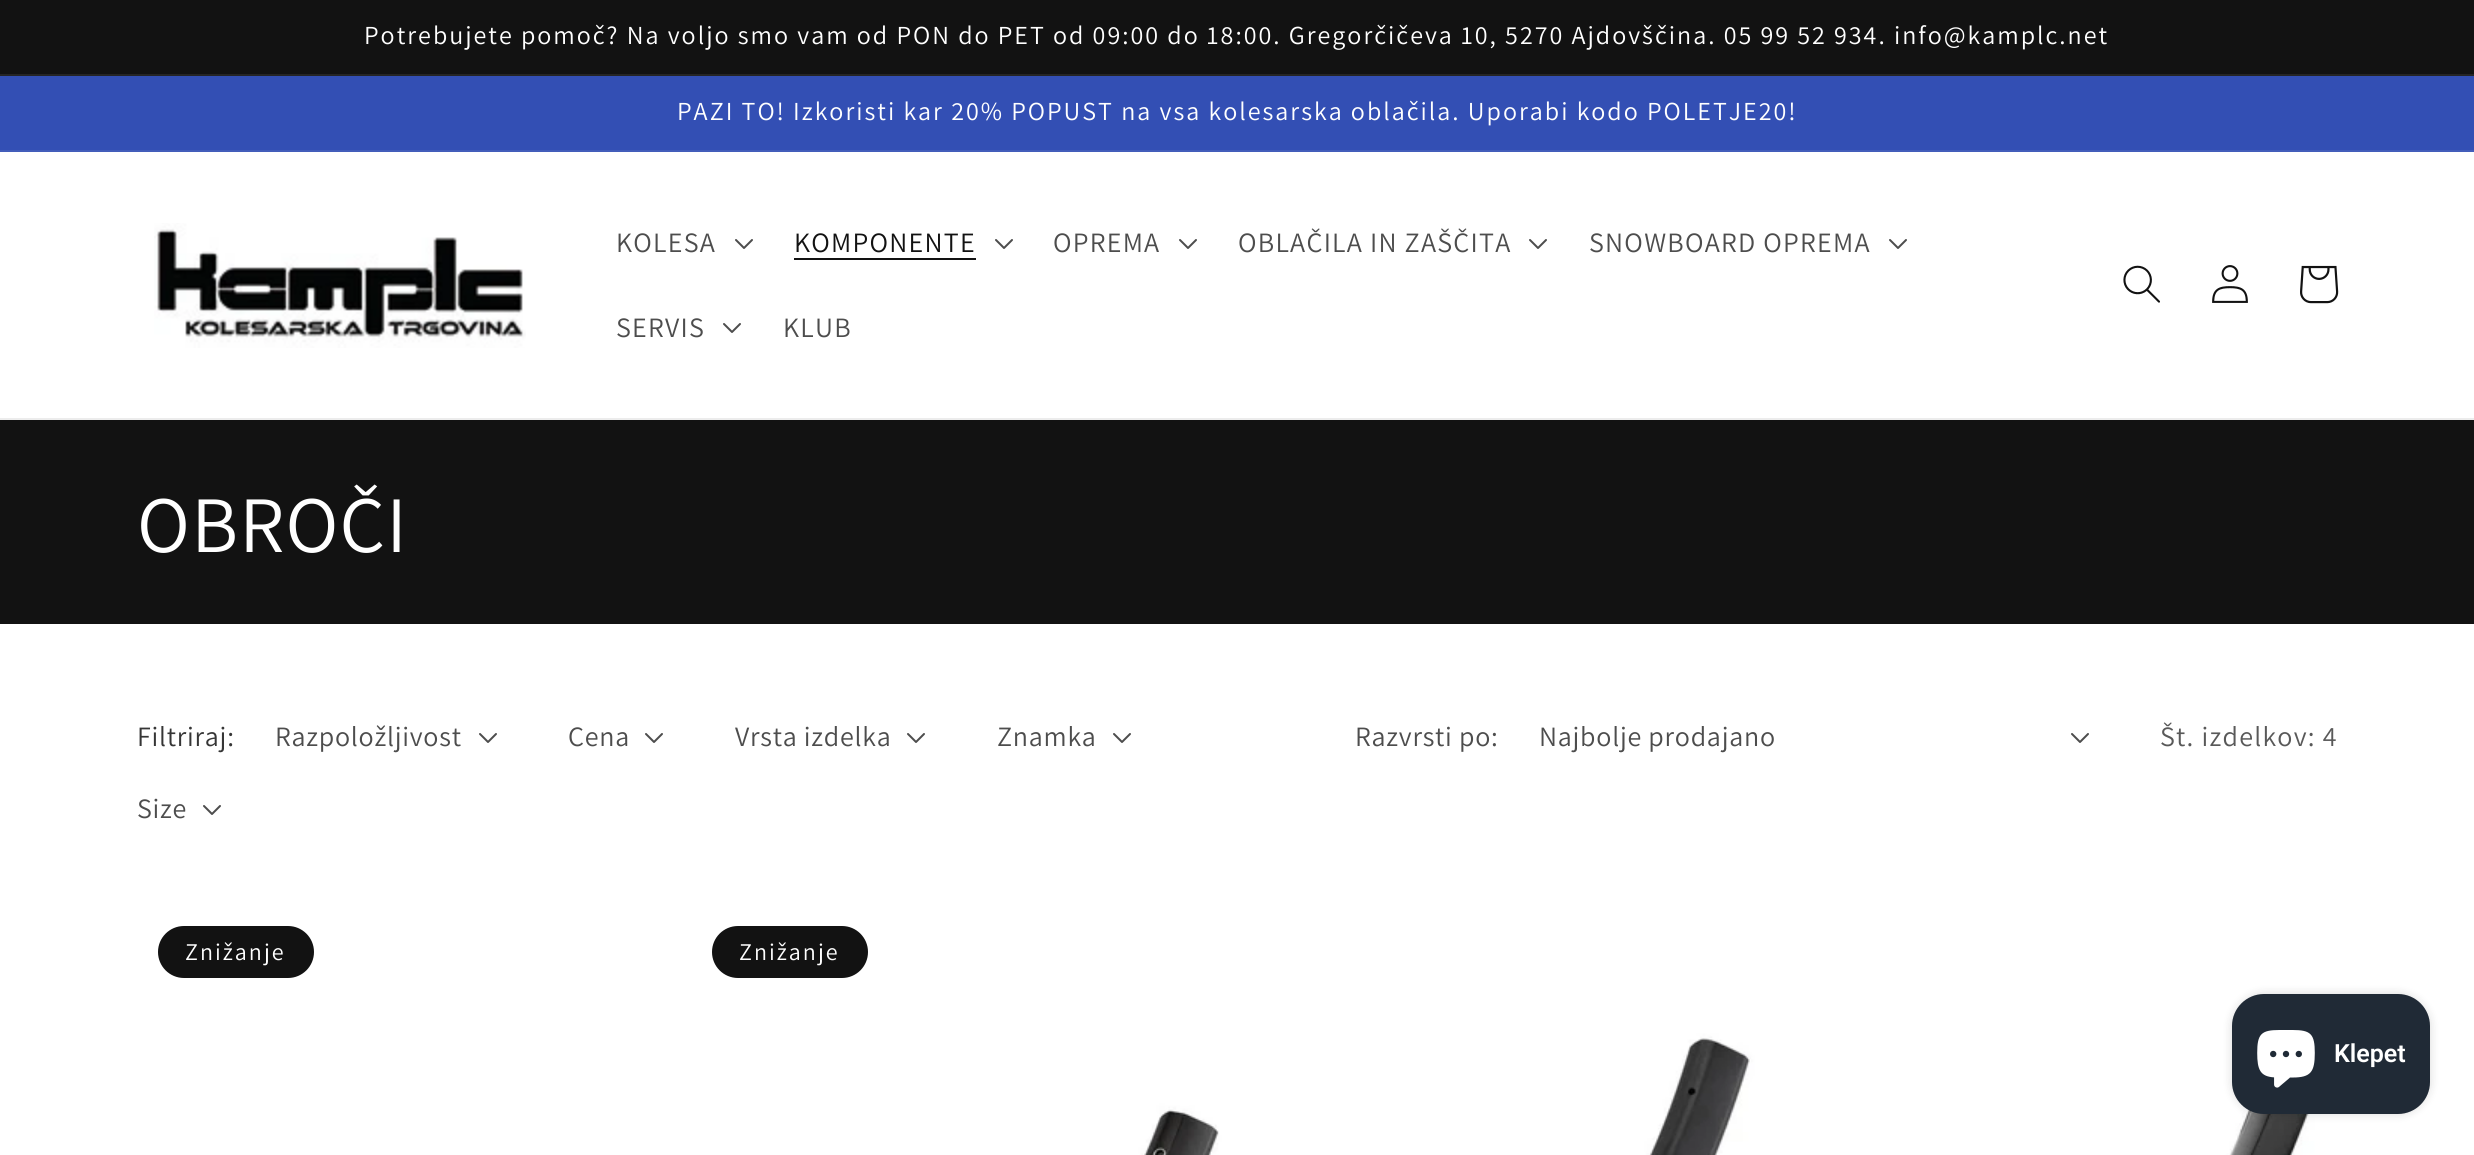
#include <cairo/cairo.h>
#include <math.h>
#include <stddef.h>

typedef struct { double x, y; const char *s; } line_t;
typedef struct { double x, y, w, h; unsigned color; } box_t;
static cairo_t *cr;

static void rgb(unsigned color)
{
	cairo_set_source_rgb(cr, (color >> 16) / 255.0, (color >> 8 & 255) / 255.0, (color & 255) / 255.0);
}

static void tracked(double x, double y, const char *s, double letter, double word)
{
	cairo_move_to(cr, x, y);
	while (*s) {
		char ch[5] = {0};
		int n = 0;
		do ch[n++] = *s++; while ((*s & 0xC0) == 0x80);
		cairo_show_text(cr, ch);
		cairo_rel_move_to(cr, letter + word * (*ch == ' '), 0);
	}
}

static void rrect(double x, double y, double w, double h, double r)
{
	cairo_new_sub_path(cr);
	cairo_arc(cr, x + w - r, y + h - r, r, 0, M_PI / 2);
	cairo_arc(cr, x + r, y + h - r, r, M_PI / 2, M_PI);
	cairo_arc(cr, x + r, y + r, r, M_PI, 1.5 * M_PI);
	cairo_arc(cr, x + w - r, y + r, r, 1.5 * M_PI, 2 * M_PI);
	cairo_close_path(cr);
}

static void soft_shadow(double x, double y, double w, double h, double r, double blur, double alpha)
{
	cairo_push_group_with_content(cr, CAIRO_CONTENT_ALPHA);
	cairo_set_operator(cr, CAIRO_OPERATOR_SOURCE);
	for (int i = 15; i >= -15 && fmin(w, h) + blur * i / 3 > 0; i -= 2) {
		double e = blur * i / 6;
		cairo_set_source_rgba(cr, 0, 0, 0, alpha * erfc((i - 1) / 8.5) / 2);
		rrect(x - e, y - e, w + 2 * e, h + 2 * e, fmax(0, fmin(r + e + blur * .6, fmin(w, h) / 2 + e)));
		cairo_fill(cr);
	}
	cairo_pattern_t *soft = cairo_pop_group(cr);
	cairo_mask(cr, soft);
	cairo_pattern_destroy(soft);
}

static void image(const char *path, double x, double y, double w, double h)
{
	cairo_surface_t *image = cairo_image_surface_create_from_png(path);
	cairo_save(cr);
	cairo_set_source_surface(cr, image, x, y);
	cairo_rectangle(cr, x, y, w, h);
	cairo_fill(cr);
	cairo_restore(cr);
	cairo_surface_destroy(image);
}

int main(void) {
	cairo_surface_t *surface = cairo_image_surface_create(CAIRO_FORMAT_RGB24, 2474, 1155);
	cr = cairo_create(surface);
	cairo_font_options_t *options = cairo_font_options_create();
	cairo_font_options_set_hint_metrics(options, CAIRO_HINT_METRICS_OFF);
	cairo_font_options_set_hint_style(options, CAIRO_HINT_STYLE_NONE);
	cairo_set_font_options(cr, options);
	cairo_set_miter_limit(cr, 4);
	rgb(0xffffff);
	cairo_paint(cr);
	{
		static const box_t items[] = {
			{0, 0, 2474, 74, 0x121212},
			{0, 74, 2474, 2, 0x252525},
			{0, 76, 2474, 74, 0x334fb4},
			{0, 150, 2474, 2, 0x435dba},
			{0, 418, 2474, 2, 0xececec},
		};
		for (size_t i = 0; i < sizeof items / sizeof *items; i++) {
			rgb(items[i].color);
			cairo_rectangle(cr, items[i].x, items[i].y, items[i].w, items[i].h);
			cairo_fill(cr);
		}
	}
	image("img/1.png", 154, 223, 372, 125);
	image("img/2.png", 735, 239, 18, 10);
	rgb(0x121212);
	cairo_rectangle(cr, 794, 258, 182, 2);
	cairo_fill(cr);
	image("img/2.png", 995, 239, 18, 10);
	image("img/2.png", 1179, 239, 18, 10);
	image("img/2.png", 1529, 239, 18, 10);
	image("img/2.png", 1889, 239, 18, 10);
	image("img/2.png", 723, 323, 18, 10);
	image("img/3.png", 2123, 265, 37, 38);
	image("img/4.png", 2212, 265, 36, 38);
	image("img/5.png", 2300, 265, 39, 39);
	cairo_rectangle(cr, 0, 420, 2474, 204);
	cairo_fill(cr);
	image("img/2.png", 479, 733, 18, 10);
	image("img/2.png", 645, 733, 18, 10);
	image("img/2.png", 907, 733, 18, 10);
	image("img/2.png", 1113, 733, 18, 10);
	image("img/2.png", 203, 805, 18, 10);
	image("img/2.png", 2071, 733, 18, 10);
	rrect(159, 927, 154, 50, 25);
	cairo_fill_preserve(cr);
	cairo_stroke(cr);
	image("img/6.png", 692, 902, 538, 253);
	rrect(713, 927, 154, 50, 25);
	cairo_fill_preserve(cr);
	cairo_stroke(cr);
	image("img/7.png", 1246, 902, 538, 253);
	image("img/8.png", 1800, 902, 538, 253);
	rgb(0x000000);
	soft_shadow(2232, 994, 198, 120, 32, 5, 0.15);
	rgb(0x202a36);
	rrect(2232, 994, 198, 120, 32);
	cairo_fill(cr);
	image("img/9.png", 2257, 1030, 58, 58);
	cairo_select_font_face(cr, "Assistant", CAIRO_FONT_SLANT_NORMAL, CAIRO_FONT_WEIGHT_NORMAL);
	cairo_set_font_size(cr, 26);
	rgb(0xffffff);
	tracked(364, 44, "Potrebujete pomoč? Na voljo smo vam od PON do PET od 09:00 do 18:00. Gregorčičeva 10, 5270 Ajdovščina. 05 99 52 934. info@kamplc.net", 2, 0);
	tracked(677, 120, "PAZI TO! Izkoristi kar 20% POPUST na vsa kolesarska oblačila. Uporabi kodo POLETJE20!", 2, 0);
	cairo_set_font_size(cr, 28);
	rgb(0x4d4d4d);
	tracked(616, 252, "KOLESA", 1.25, 0);
	rgb(0x121212);
	tracked(794, 252, "KOMPONENTE", 1.25, 0);
	rgb(0x4d4d4d);
	{
		static const line_t items[] = {
			{1053, 252, "OPREMA"},
			{1238, 252, "OBLAČILA IN ZAŠČITA"},
			{1589, 252, "SNOWBOARD OPREMA"},
			{616, 337, "SERVIS"},
			{783, 337, "KLUB"},
		};
		for (size_t i = 0; i < sizeof items / sizeof *items; i++) {
			tracked(items[i].x, items[i].y, items[i].s, 1.25, 0);
		}
	}
	cairo_set_font_size(cr, 80);
	rgb(0xffffff);
	tracked(137, 552, "OBROČI", 1.25, 0);
	cairo_set_font_size(cr, 28);
	rgb(0x363636);
	tracked(137, 746, "Filtriraj:", 0.75, 0);
	rgb(0x4d4d4d);
	{
		static const line_t items[] = {
			{275, 746, "Razpoložljivost"},
			{568, 746, "Cena"},
			{735, 746, "Vrsta izdelka"},
			{997, 746, "Znamka"},
			{137, 818, "Size"},
			{1355, 746, "Razvrsti po:"},
			{1539, 746, "Najbolje prodajano"},
		};
		for (size_t i = 0; i < sizeof items / sizeof *items; i++) {
			tracked(items[i].x, items[i].y, items[i].s, 0.75, 0);
		}
	}
	rgb(0x595959);
	tracked(2160, 746, "Št. izdelkov: 4", 1.25, 0);
	cairo_set_font_size(cr, 24);
	rgb(0xffffff);
	tracked(185, 960, "Znižanje", 2, 0);
	tracked(739, 960, "Znižanje", 2, 0);
	cairo_select_font_face(cr, "Roboto SemiBold", CAIRO_FONT_SLANT_NORMAL, CAIRO_FONT_WEIGHT_NORMAL);
	cairo_set_font_size(cr, 25);
	cairo_move_to(cr, 2334, 1062);
	cairo_show_text(cr, "Klepet");
	cairo_surface_write_to_png(surface, "page.png");
	cairo_font_options_destroy(options);
	cairo_destroy(cr);
	cairo_surface_destroy(surface);
	return 0;
}
